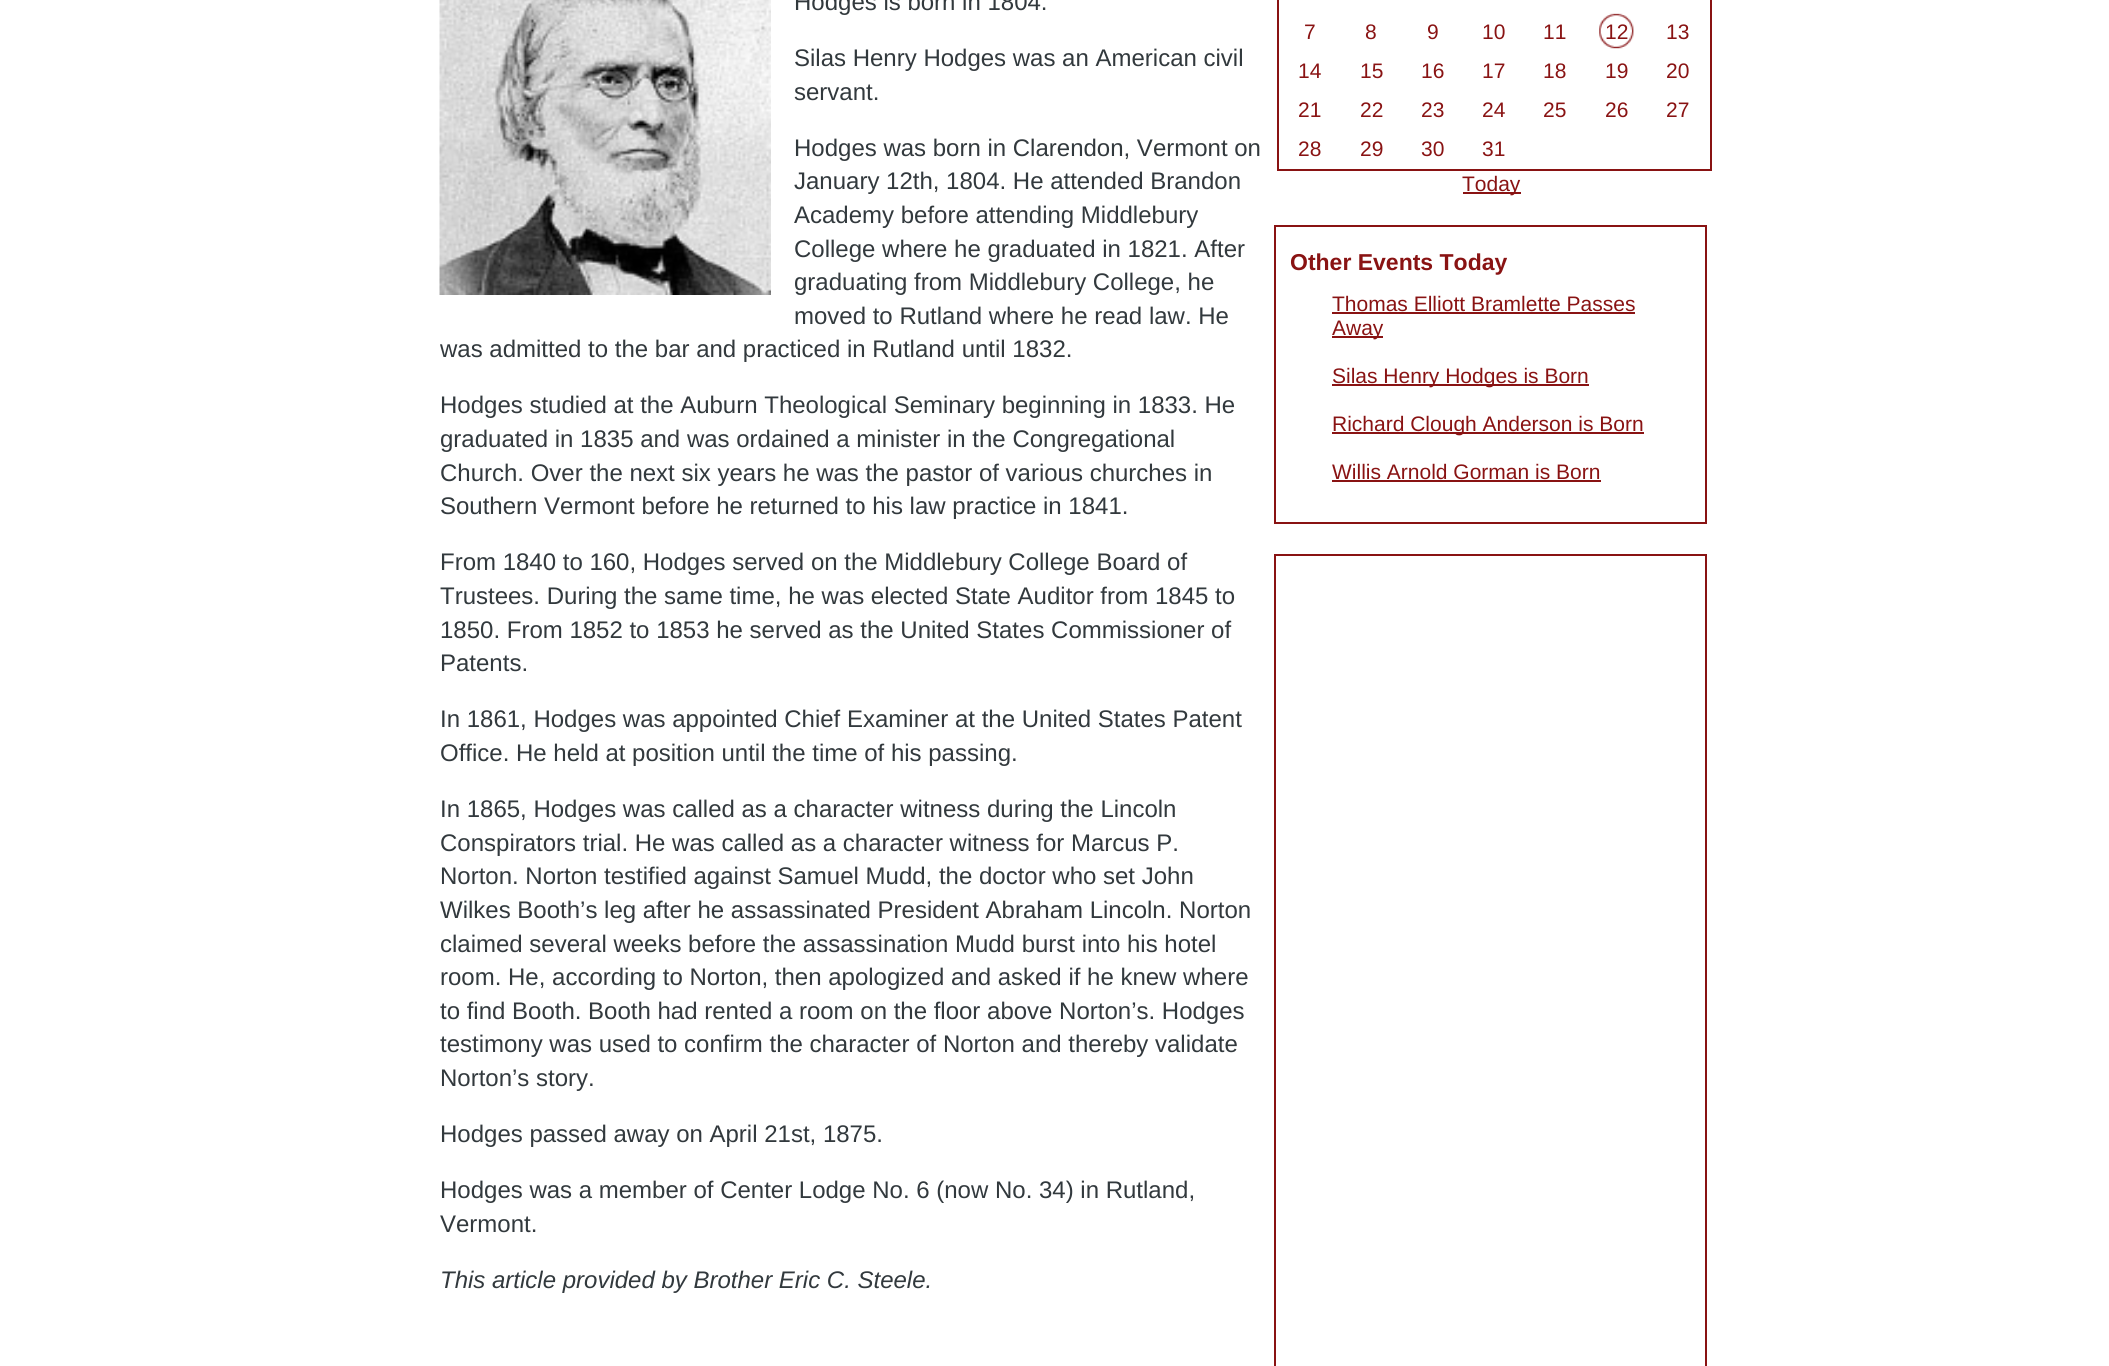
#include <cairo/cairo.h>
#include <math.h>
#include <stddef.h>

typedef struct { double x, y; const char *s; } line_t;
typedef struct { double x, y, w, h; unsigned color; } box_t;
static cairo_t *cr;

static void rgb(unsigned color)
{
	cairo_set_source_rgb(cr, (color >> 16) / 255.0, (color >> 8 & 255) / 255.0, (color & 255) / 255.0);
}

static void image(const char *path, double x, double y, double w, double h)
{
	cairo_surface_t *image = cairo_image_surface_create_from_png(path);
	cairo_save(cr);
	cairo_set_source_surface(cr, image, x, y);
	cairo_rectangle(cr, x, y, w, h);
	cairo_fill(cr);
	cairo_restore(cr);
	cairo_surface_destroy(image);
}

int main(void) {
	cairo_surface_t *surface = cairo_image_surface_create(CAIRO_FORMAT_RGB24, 2109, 1366);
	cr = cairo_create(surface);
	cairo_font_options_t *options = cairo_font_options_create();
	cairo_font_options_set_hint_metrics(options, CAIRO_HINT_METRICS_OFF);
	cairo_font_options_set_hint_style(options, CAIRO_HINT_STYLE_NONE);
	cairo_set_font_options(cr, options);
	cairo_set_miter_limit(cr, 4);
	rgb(0xffffff);
	cairo_paint(cr);
	image("img/1.png", 439, 0, 332, 295);
	cairo_rectangle(cr, 1278, -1, 433, 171);
	rgb(0x891313);
	cairo_stroke(cr);
	image("img/2.png", 1599, 13, 35, 36);
	cairo_rectangle(cr, 1463, 192, 58, 2);
	cairo_fill(cr);
	cairo_rectangle(cr, 1275, 226, 431, 297);
	cairo_stroke(cr);
	{
		static const box_t items[] = {
			{1332, 312, 303, 2, 0x891313},
			{1332, 336, 51, 2, 0x891313},
			{1332, 384, 257, 2, 0x891313},
			{1332, 432, 312, 2, 0x891313},
			{1332, 480, 269, 2, 0x891313},
		};
		for (size_t i = 0; i < sizeof items / sizeof *items; i++) {
			rgb(items[i].color);
			cairo_rectangle(cr, items[i].x, items[i].y, items[i].w, items[i].h);
			cairo_fill(cr);
		}
	}
	cairo_rectangle(cr, 1275, 555, 431, 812);
	cairo_stroke(cr);
	cairo_select_font_face(cr, "Liberation Sans", CAIRO_FONT_SLANT_NORMAL, CAIRO_FONT_WEIGHT_NORMAL);
	cairo_set_font_size(cr, 24);
	rgb(0x32393d);
	{
		static const line_t items[] = {
			{794, 10, "Hodges is born in 1804."},
			{794, 66, "Silas Henry Hodges was an American civil"},
			{794, 100, "servant."},
			{794, 156, "Hodges was born in Clarendon, Vermont on"},
			{794, 189, "January 12th, 1804. He attended Brandon"},
			{794, 223, "Academy before attending Middlebury"},
			{794, 257, "College where he graduated in 1821. After"},
			{794, 290, "graduating from Middlebury College, he"},
			{794, 324, "moved to Rutland where he read law. He"},
			{440, 357, "was admitted to the bar and practiced in Rutland until 1832."},
			{440, 413, "Hodges studied at the Auburn Theological Seminary beginning in 1833. He"},
			{440, 447, "graduated in 1835 and was ordained a minister in the Congregational"},
			{440, 481, "Church. Over the next six years he was the pastor of various churches in"},
			{440, 514, "Southern Vermont before he returned to his law practice in 1841."},
			{440, 570, "From 1840 to 160, Hodges served on the Middlebury College Board of"},
			{440, 604, "Trustees. During the same time, he was elected State Auditor from 1845 to"},
			{440, 638, "1850. From 1852 to 1853 he served as the United States Commissioner of"},
			{440, 671, "Patents."},
			{440, 727, "In 1861, Hodges was appointed Chief Examiner at the United States Patent"},
			{440, 761, "Office. He held at position until the time of his passing."},
			{440, 817, "In 1865, Hodges was called as a character witness during the Lincoln"},
			{440, 851, "Conspirators trial. He was called as a character witness for Marcus P."},
			{440, 884, "Norton. Norton testified against Samuel Mudd, the doctor who set John"},
			{440, 918, "Wilkes Booth’s leg after he assassinated President Abraham Lincoln. Norton"},
			{440, 952, "claimed several weeks before the assassination Mudd burst into his hotel"},
			{440, 985, "room. He, according to Norton, then apologized and asked if he knew where"},
			{440, 1019, "to find Booth. Booth had rented a room on the floor above Norton’s. Hodges"},
			{440, 1052, "testimony was used to confirm the character of Norton and thereby validate"},
			{440, 1086, "Norton’s story."},
			{440, 1142, "Hodges passed away on April 21st, 1875."},
			{440, 1198, "Hodges was a member of Center Lodge No. 6 (now No. 34) in Rutland,"},
			{440, 1232, "Vermont."},
		};
		for (size_t i = 0; i < sizeof items / sizeof *items; i++) {
			cairo_move_to(cr, items[i].x, items[i].y);
			cairo_show_text(cr, items[i].s);
		}
	}
	cairo_select_font_face(cr, "Liberation Sans", CAIRO_FONT_SLANT_ITALIC, CAIRO_FONT_WEIGHT_NORMAL);
	cairo_move_to(cr, 440, 1288);
	cairo_show_text(cr, "This article provided by Brother Eric C. Steele.");
	cairo_select_font_face(cr, "Liberation Sans", CAIRO_FONT_SLANT_NORMAL, CAIRO_FONT_WEIGHT_NORMAL);
	cairo_set_font_size(cr, 21);
	rgb(0x891313);
	{
		static const line_t items[] = {
			{1304, 39, "7"},
			{1365, 39, "8"},
			{1427, 39, "9"},
			{1482, 39, "10"},
			{1543, 39, "11"},
			{1605, 39, "12"},
			{1666, 39, "13"},
			{1298, 78, "14"},
			{1360, 78, "15"},
			{1421, 78, "16"},
			{1482, 78, "17"},
			{1543, 78, "18"},
			{1605, 78, "19"},
			{1666, 78, "20"},
			{1298, 117, "21"},
			{1360, 117, "22"},
			{1421, 117, "23"},
			{1482, 117, "24"},
			{1543, 117, "25"},
			{1605, 117, "26"},
			{1666, 117, "27"},
			{1298, 156, "28"},
			{1360, 156, "29"},
			{1421, 156, "30"},
			{1482, 156, "31"},
			{1462, 191, "Today"},
		};
		for (size_t i = 0; i < sizeof items / sizeof *items; i++) {
			cairo_move_to(cr, items[i].x, items[i].y);
			cairo_show_text(cr, items[i].s);
		}
	}
	cairo_select_font_face(cr, "Liberation Sans", CAIRO_FONT_SLANT_NORMAL, CAIRO_FONT_WEIGHT_BOLD);
	cairo_set_font_size(cr, 23);
	cairo_move_to(cr, 1290, 270);
	cairo_show_text(cr, "Other Events Today");
	cairo_select_font_face(cr, "Liberation Sans", CAIRO_FONT_SLANT_NORMAL, CAIRO_FONT_WEIGHT_NORMAL);
	cairo_set_font_size(cr, 21);
	{
		static const line_t items[] = {
			{1332, 311, "Thomas Elliott Bramlette Passes"},
			{1332, 335, "Away"},
			{1332, 383, "Silas Henry Hodges is Born"},
			{1332, 431, "Richard Clough Anderson is Born"},
			{1332, 479, "Willis Arnold Gorman is Born"},
		};
		for (size_t i = 0; i < sizeof items / sizeof *items; i++) {
			cairo_move_to(cr, items[i].x, items[i].y);
			cairo_show_text(cr, items[i].s);
		}
	}
	cairo_surface_write_to_png(surface, "page.png");
	cairo_font_options_destroy(options);
	cairo_destroy(cr);
	cairo_surface_destroy(surface);
	return 0;
}
